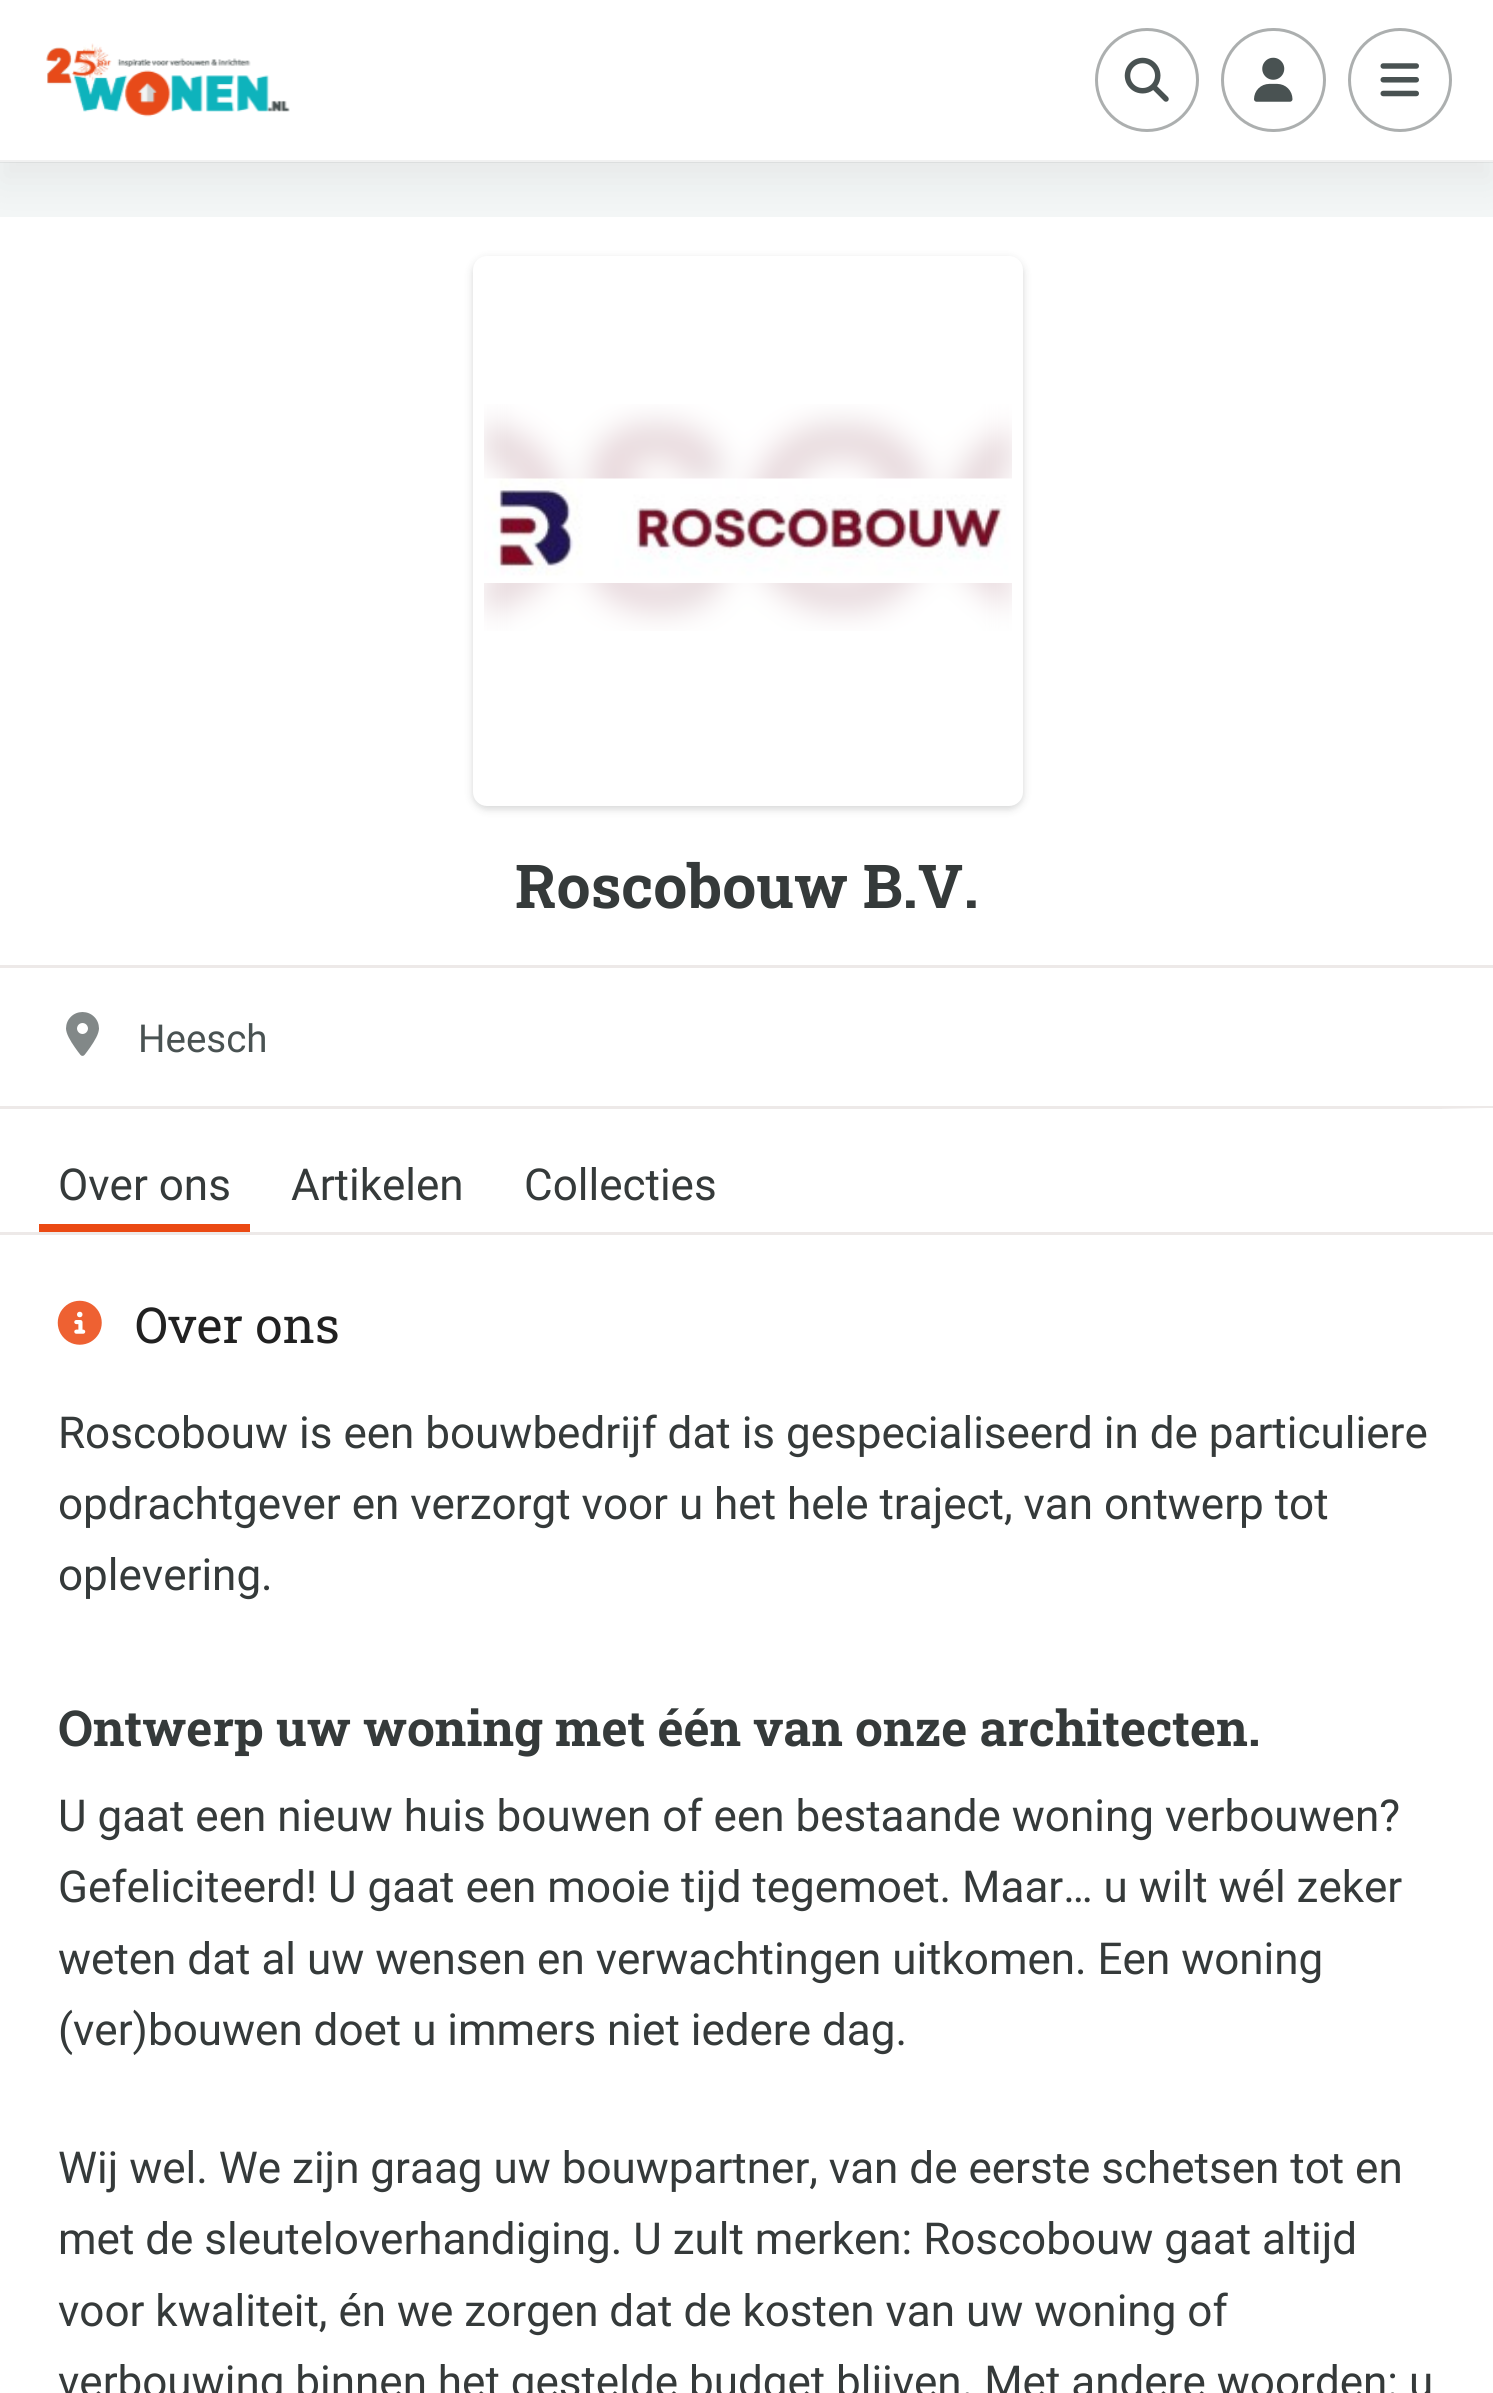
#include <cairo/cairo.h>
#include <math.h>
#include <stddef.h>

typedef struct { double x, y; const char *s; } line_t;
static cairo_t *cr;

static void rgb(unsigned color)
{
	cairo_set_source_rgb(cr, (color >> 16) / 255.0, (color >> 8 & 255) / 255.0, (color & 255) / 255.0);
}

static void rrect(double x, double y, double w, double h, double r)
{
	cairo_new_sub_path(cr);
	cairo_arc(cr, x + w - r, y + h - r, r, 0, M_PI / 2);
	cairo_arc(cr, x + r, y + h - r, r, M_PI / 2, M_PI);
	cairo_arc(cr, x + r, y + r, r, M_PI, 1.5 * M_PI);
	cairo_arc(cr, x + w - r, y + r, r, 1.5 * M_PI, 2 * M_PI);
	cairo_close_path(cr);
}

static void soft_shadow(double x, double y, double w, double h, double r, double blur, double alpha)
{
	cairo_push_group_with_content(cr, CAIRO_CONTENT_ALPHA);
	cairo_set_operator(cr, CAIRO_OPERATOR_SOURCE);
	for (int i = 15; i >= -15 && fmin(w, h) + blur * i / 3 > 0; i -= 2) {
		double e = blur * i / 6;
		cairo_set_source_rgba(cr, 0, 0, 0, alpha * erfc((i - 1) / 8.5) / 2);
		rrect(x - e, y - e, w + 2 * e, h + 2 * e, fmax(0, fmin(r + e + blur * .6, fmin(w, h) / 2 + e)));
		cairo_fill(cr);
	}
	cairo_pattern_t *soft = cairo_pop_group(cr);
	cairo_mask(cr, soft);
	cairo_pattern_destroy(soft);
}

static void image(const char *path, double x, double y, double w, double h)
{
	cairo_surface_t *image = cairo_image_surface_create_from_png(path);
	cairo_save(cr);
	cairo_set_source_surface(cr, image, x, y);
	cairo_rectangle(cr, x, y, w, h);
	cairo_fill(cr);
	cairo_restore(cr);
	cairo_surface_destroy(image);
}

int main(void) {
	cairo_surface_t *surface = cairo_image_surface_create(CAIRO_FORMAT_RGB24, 1493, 2393);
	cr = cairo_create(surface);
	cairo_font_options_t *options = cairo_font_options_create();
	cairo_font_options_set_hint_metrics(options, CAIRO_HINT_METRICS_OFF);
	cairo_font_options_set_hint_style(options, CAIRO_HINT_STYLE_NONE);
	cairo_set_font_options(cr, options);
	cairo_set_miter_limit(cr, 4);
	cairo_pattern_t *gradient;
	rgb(0xf3f6f6);
	cairo_paint(cr);
	rgb(0xffffff);
	cairo_rectangle(cr, 0, 217, 1493, 1015);
	cairo_fill(cr);
	rgb(0x171c1c);
	soft_shadow(0, 19, 1493, 163, 0, 19, 0.06);
	rgb(0xffffff);
	cairo_rectangle(cr, 0, 0, 1493, 162);
	cairo_fill(cr);
	cairo_set_source_rgba(cr, 0.09, 0.11, 0.11, 0.06);
	cairo_rectangle(cr, 0, 160, 1493, 3);
	cairo_fill(cr);
	image("img/1.png", 46, 43, 244, 74);
	cairo_arc(cr, 1147, 80, 50.5, 0, 2 * M_PI);
	rgb(0xacafaf);
	cairo_set_line_width(cr, 3);
	cairo_stroke(cr);
	image("img/2.png", 1124, 57, 45, 45);
	rrect(1222.5, 29.5, 102, 101, 50.5);
	cairo_stroke(cr);
	image("img/3.png", 1254, 57, 39, 45);
	cairo_arc(cr, 1400, 80, 50.5, 0, 2 * M_PI);
	cairo_stroke(cr);
	image("img/4.png", 1380, 63, 39, 34);
	rgb(0x171c1c);
	soft_shadow(473, 259, 550, 550, 14, 4, 0.18);
	rgb(0xffffff);
	rrect(478.5, 261.5, 539, 539, 8.5);
	cairo_fill_preserve(cr);
	cairo_set_line_width(cr, 11);
	cairo_stroke(cr);
	image("img/5.png", 484, 404, 528, 227);
	image("img/6.png", 484, 478, 528, 105);
	rgb(0xede9e8);
	cairo_rectangle(cr, 0, 965, 1493, 3);
	cairo_fill(cr);
	image("img/7.png", 66, 1012, 33, 44);
	cairo_rectangle(cr, 0, 1106, 1493, 3);
	cairo_fill(cr);
	cairo_rectangle(cr, 0, 1232, 1493, 3);
	cairo_fill(cr);
	gradient = cairo_pattern_create_linear(1493, 1170, 1436, 1170);
	cairo_pattern_add_color_stop_rgba(gradient, 0.1, 1, 1, 1, 1);
	cairo_pattern_add_color_stop_rgba(gradient, 1, 1, 1, 1, 0);
	cairo_set_source(cr, gradient);
	cairo_pattern_destroy(gradient);
	cairo_rectangle(cr, 1442, 1108, 51, 1);
	cairo_fill(cr);
	rgb(0xeb4a14);
	cairo_rectangle(cr, 39, 1224, 211, 8);
	cairo_fill(cr);
	rgb(0xffffff);
	cairo_rectangle(cr, 0, 1235, 1493, 1158);
	cairo_fill(cr);
	image("img/8.png", 57, 1300, 45, 45);
	cairo_select_font_face(cr, "Roboto Slab", CAIRO_FONT_SLANT_NORMAL, CAIRO_FONT_WEIGHT_BOLD);
	cairo_set_font_size(cr, 60.5);
	rgb(0x353a3a);
	cairo_move_to(cr, 515, 908);
	cairo_show_text(cr, "Roscobouw B.V.");
	cairo_select_font_face(cr, "Roboto", CAIRO_FONT_SLANT_NORMAL, CAIRO_FONT_WEIGHT_NORMAL);
	cairo_set_font_size(cr, 38.5);
	rgb(0x495252);
	cairo_move_to(cr, 138, 1052);
	cairo_show_text(cr, "Heesch");
	cairo_set_font_size(cr, 44);
	rgb(0x353a3a);
	{
		static const line_t items[] = {
			{58, 1200, "Over ons"},
			{291, 1200, "Artikelen"},
			{524, 1200, "Collecties"},
		};
		for (size_t i = 0; i < sizeof items / sizeof *items; i++) {
			cairo_move_to(cr, items[i].x, items[i].y);
			cairo_show_text(cr, items[i].s);
		}
	}
	cairo_select_font_face(cr, "Roboto Slab", CAIRO_FONT_SLANT_NORMAL, CAIRO_FONT_WEIGHT_NORMAL);
	cairo_set_font_size(cr, 49.5);
	rgb(0x212121);
	cairo_move_to(cr, 135, 1343);
	cairo_show_text(cr, "Over ons");
	cairo_select_font_face(cr, "Roboto", CAIRO_FONT_SLANT_NORMAL, CAIRO_FONT_WEIGHT_NORMAL);
	cairo_set_font_size(cr, 44);
	rgb(0x353a3a);
	{
		static const line_t items[] = {
			{58, 1448, "Roscobouw is een bouwbedrijf dat is gespecialiseerd in de particuliere"},
			{58, 1519, "opdrachtgever en verzorgt voor u het hele traject, van ontwerp tot"},
			{58, 1590, "oplevering."},
		};
		for (size_t i = 0; i < sizeof items / sizeof *items; i++) {
			cairo_move_to(cr, items[i].x, items[i].y);
			cairo_show_text(cr, items[i].s);
		}
	}
	cairo_select_font_face(cr, "Roboto Slab", CAIRO_FONT_SLANT_NORMAL, CAIRO_FONT_WEIGHT_BOLD);
	cairo_set_font_size(cr, 49.5);
	cairo_move_to(cr, 58, 1746);
	cairo_show_text(cr, "Ontwerp uw woning met één van onze architecten.");
	cairo_select_font_face(cr, "Roboto", CAIRO_FONT_SLANT_NORMAL, CAIRO_FONT_WEIGHT_NORMAL);
	cairo_set_font_size(cr, 44);
	{
		static const line_t items[] = {
			{58, 1831, "U gaat een nieuw huis bouwen of een bestaande woning verbouwen?"},
			{58, 1902, "Gefeliciteerd! U gaat een mooie tijd tegemoet. Maar… u wilt wél zeker"},
			{58, 1974, "weten dat al uw wensen en verwachtingen uitkomen. Een woning"},
			{58, 2045, "(ver)bouwen doet u immers niet iedere dag."},
			{58, 2183, "Wij wel. We zijn graag uw bouwpartner, van de eerste schetsen tot en"},
			{58, 2254, "met de sleuteloverhandiging. U zult merken: Roscobouw gaat altijd"},
			{58, 2326, "voor kwaliteit, én we zorgen dat de kosten van uw woning of"},
			{58, 2397, "verbouwing binnen het gestelde budget blijven. Met andere woorden: u"},
		};
		for (size_t i = 0; i < sizeof items / sizeof *items; i++) {
			cairo_move_to(cr, items[i].x, items[i].y);
			cairo_show_text(cr, items[i].s);
		}
	}
	cairo_surface_write_to_png(surface, "page.png");
	cairo_font_options_destroy(options);
	cairo_destroy(cr);
	cairo_surface_destroy(surface);
	return 0;
}
